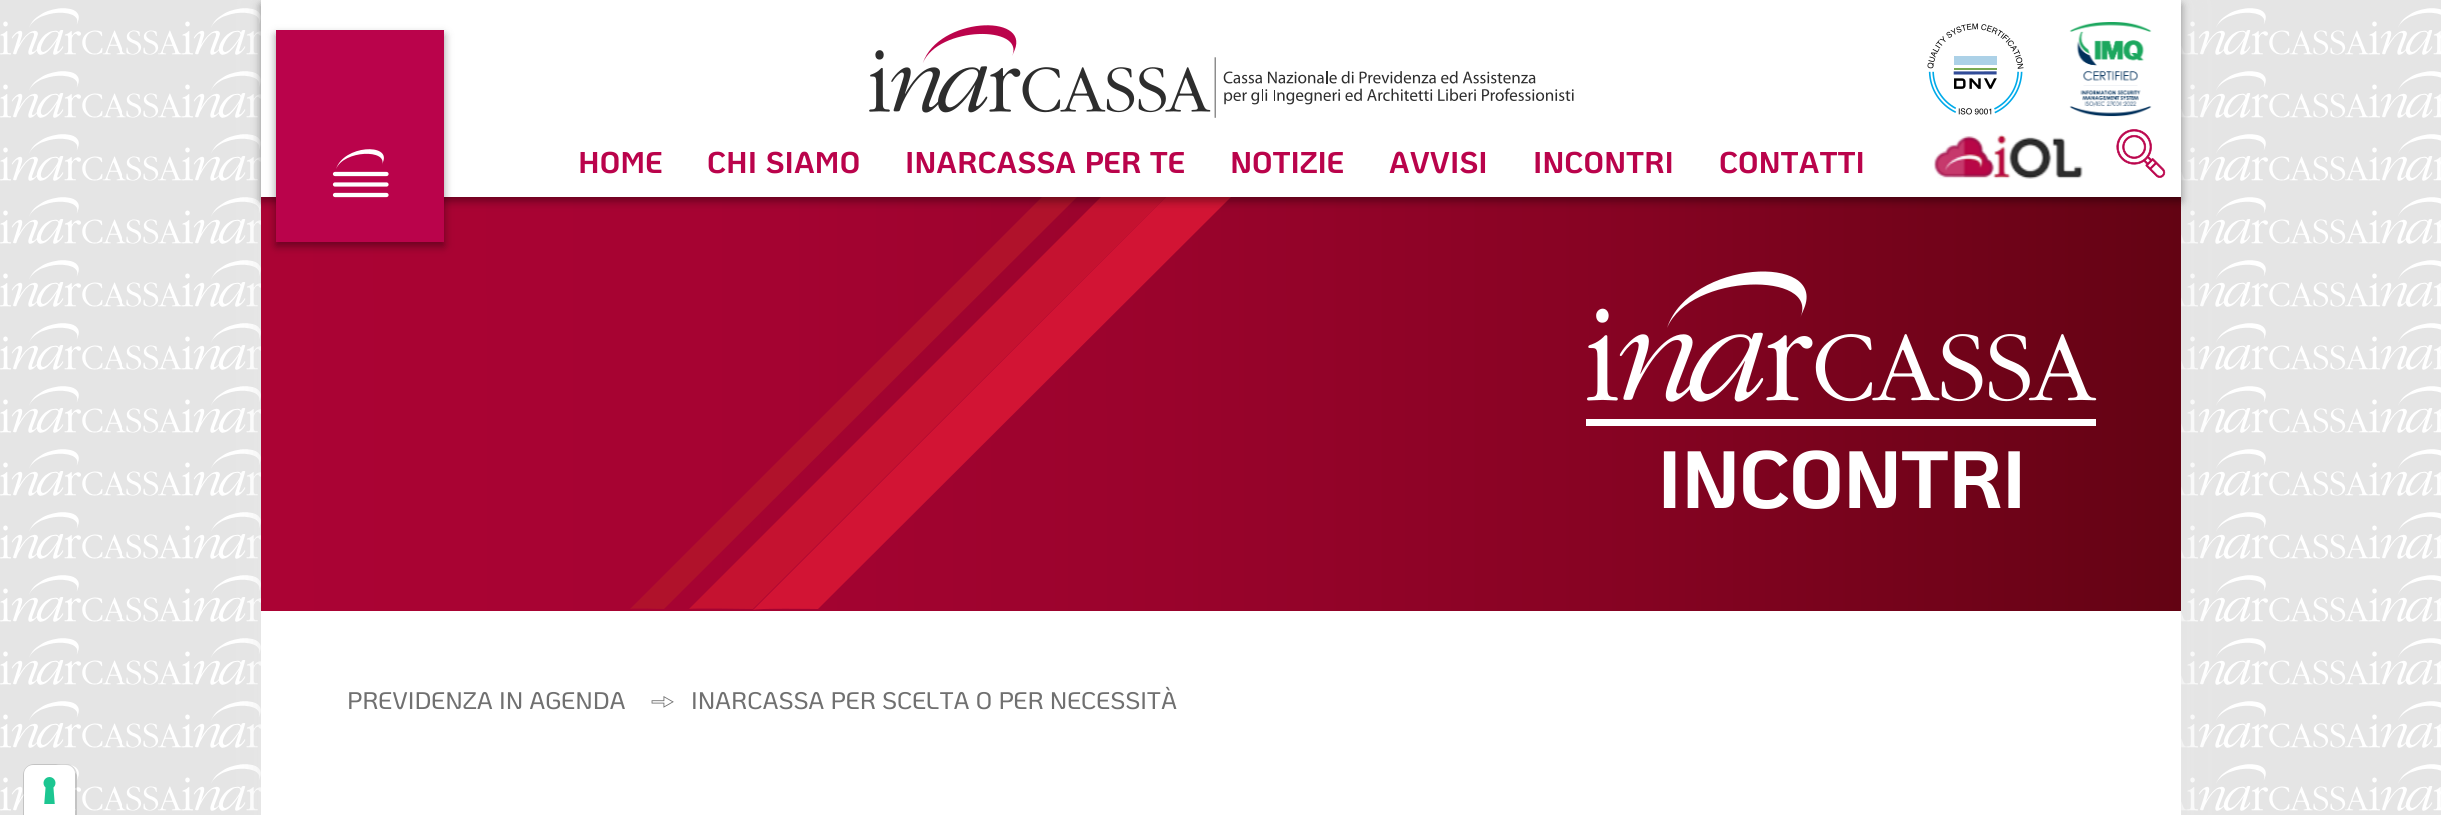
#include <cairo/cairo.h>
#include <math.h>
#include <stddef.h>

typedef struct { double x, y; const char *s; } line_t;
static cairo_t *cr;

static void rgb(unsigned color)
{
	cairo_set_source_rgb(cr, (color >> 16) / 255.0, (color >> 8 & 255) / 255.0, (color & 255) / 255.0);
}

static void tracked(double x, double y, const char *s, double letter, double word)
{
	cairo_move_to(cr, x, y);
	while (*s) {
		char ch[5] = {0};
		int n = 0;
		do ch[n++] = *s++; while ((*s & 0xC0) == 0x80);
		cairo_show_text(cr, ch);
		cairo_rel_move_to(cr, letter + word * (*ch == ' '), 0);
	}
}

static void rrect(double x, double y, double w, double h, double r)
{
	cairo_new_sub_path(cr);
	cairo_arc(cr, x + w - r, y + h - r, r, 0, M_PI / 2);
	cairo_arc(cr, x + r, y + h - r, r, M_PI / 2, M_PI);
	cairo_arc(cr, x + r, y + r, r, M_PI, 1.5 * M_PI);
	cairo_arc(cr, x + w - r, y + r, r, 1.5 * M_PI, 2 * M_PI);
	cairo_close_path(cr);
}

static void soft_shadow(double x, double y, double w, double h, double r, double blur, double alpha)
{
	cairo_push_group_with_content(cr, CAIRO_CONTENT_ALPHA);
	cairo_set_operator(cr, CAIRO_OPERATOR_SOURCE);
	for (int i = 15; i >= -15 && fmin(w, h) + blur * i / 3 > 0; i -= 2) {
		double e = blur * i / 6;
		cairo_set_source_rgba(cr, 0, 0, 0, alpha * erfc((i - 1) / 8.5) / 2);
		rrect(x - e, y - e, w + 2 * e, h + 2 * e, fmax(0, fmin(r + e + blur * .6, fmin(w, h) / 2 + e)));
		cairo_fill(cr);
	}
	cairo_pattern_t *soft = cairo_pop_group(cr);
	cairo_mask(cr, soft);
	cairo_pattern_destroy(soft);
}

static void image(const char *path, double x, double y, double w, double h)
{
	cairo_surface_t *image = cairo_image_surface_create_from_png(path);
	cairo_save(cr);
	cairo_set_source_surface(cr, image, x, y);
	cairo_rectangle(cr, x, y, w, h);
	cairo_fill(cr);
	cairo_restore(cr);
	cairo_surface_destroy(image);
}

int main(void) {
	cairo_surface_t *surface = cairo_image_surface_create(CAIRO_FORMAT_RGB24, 2441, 815);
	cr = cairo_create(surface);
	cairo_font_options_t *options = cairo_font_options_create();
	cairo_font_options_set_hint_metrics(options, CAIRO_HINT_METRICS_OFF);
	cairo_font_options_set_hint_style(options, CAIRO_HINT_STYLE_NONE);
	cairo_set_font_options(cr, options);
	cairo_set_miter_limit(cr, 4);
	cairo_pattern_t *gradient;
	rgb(0xe5e5e5);
	cairo_paint(cr);
	image("img/1.png", 0, 8, 2441, 803);
	rgb(0xe6e6e6);
	soft_shadow(264, 3, 1920, 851, 0, 13, 1);
	rgb(0xffffff);
	cairo_rectangle(cr, 261, 611, 1920, 204);
	cairo_fill(cr);
	gradient = cairo_pattern_create_linear(261, 404, 2181, 403);
	cairo_pattern_add_color_stop_rgba(gradient, 0, 0.671, 0.012, 0.204, 1);
	cairo_pattern_add_color_stop_rgba(gradient, 0.23, 0.651, 0.012, 0.196, 1);
	cairo_pattern_add_color_stop_rgba(gradient, 0.47, 0.604, 0.012, 0.173, 1);
	cairo_pattern_add_color_stop_rgba(gradient, 0.72, 0.522, 0.012, 0.133, 1);
	cairo_pattern_add_color_stop_rgba(gradient, 0.97, 0.404, 0.012, 0.082, 1);
	cairo_pattern_add_color_stop_rgba(gradient, 1, 0.388, 0.012, 0.075, 1);
	cairo_set_source(cr, gradient);
	cairo_pattern_destroy(gradient);
	cairo_rectangle(cr, 261, 197, 1920, 414);
	cairo_fill(cr);
	rgb(0xc51230);
	cairo_new_path(cr);
	cairo_move_to(cr, 689, 609);
	cairo_line_to(cr, 1101, 197);
	cairo_line_to(cr, 1166, 197);
	cairo_line_to(cr, 753, 609);
	cairo_curve_to(cr, 753, 609, 690, 608, 689, 609);
	cairo_close_path(cr);
	cairo_fill(cr);
	rgb(0xd21434);
	cairo_new_path(cr);
	cairo_move_to(cr, 753, 610);
	cairo_line_to(cr, 1166, 197);
	cairo_line_to(cr, 1231, 197);
	cairo_line_to(cr, 818, 609);
	cairo_curve_to(cr, 818, 609, 754, 608, 753, 610);
	cairo_close_path(cr);
	cairo_fill(cr);
	rgb(0xb0122b);
	cairo_new_path(cr);
	cairo_move_to(cr, 630, 609);
	cairo_line_to(cr, 1042, 197);
	cairo_line_to(cr, 1077, 197);
	cairo_line_to(cr, 664, 609);
	cairo_curve_to(cr, 664, 609, 631, 608, 630, 609);
	cairo_close_path(cr);
	cairo_fill(cr);
	rgb(0x000000);
	soft_shadow(261, 5, 1920, 196, 0, 4.5, 0.4);
	rgb(0xffffff);
	cairo_rectangle(cr, 261, 0, 1920, 197);
	cairo_fill(cr);
	rgb(0x000000);
	soft_shadow(276, 35, 168, 211, 0, 4.5, 0.4);
	rgb(0xba034b);
	cairo_rectangle(cr, 276, 30, 168, 212);
	cairo_fill(cr);
	rgb(0xffffff);
	cairo_new_path(cr);
	cairo_move_to(cr, 382, 165);
	cairo_curve_to(cr, 388, 149, 344, 150, 336, 169);
	cairo_curve_to(cr, 344, 145, 391, 143, 383, 162);
	cairo_fill(cr);
	cairo_new_path(cr);
	cairo_move_to(cr, 335, 174);
	cairo_line_to(cr, 386.5, 174);
	cairo_move_to(cr, 335, 184.5);
	cairo_line_to(cr, 386.5, 184.5);
	cairo_move_to(cr, 335, 195);
	cairo_line_to(cr, 386.5, 195);
	cairo_set_line_width(cr, 4.2);
	cairo_set_line_cap(cr, CAIRO_LINE_CAP_ROUND);
	cairo_stroke(cr);
	image("img/2.png", 869, 25, 705, 93);
	image("img/3.png", 1927, 23, 97, 92);
	image("img/4.png", 2069, 22, 83, 95);
	image("img/5.png", 1933, 134, 150, 45);
	image("img/6.png", 2116, 129, 50, 49);
	image("img/7.png", 1587, 271, 510, 131);
	cairo_rectangle(cr, 1586, 419, 510, 7);
	cairo_fill(cr);
	image("img/8.png", 651, 696, 23, 12);
	cairo_new_path(cr);
	cairo_move_to(cr, 34, 765);
	cairo_line_to(cr, 66, 765);
	cairo_curve_to(cr, 71.5, 765, 76, 769.5, 76, 775);
	cairo_line_to(cr, 76, 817);
	cairo_line_to(cr, 24, 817);
	cairo_line_to(cr, 24, 775);
	cairo_curve_to(cr, 24, 769.5, 28.5, 765, 34, 765);
	cairo_close_path(cr);
	cairo_set_source_rgba(cr, 0, 0, 0, 0.15);
	cairo_set_line_width(cr, 2);
	cairo_set_line_cap(cr, CAIRO_LINE_CAP_BUTT);
	cairo_stroke(cr);
	rgb(0xffffff);
	cairo_new_path(cr);
	cairo_move_to(cr, 33, 765);
	cairo_line_to(cr, 66, 765);
	cairo_curve_to(cr, 71, 765, 75, 769, 75, 774);
	cairo_line_to(cr, 75, 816);
	cairo_line_to(cr, 24, 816);
	cairo_line_to(cr, 24, 774);
	cairo_curve_to(cr, 24, 769, 28, 765, 33, 765);
	cairo_close_path(cr);
	cairo_fill(cr);
	image("img/9.png", 43, 777, 13, 27);
	cairo_select_font_face(cr, "KoHo", CAIRO_FONT_SLANT_NORMAL, CAIRO_FONT_WEIGHT_BOLD);
	cairo_set_font_size(cr, 30);
	rgb(0xba034b);
	{
		static const line_t items[] = {
			{578, 173, "HOME"},
			{707, 173, "CHI SIAMO"},
			{905, 173, "INARCASSA PER TE"},
			{1230, 173, "NOTIZIE"},
			{1389, 173, "AVVISI"},
			{1533, 173, "INCONTRI"},
			{1719, 173, "CONTATTI"},
		};
		for (size_t i = 0; i < sizeof items / sizeof *items; i++) {
			cairo_move_to(cr, items[i].x, items[i].y);
			cairo_show_text(cr, items[i].s);
		}
	}
	cairo_set_font_size(cr, 81);
	rgb(0xffffff);
	tracked(1657, 508, "INCONTRI", -1.5, 0);
	cairo_select_font_face(cr, "KoHo Medium", CAIRO_FONT_SLANT_NORMAL, CAIRO_FONT_WEIGHT_NORMAL);
	cairo_set_font_size(cr, 24);
	rgb(0x707070);
	cairo_move_to(cr, 347, 709);
	cairo_show_text(cr, "PREVIDENZA IN AGENDA");
	cairo_move_to(cr, 691, 709);
	cairo_show_text(cr, "INARCASSA PER SCELTA O PER NECESSITÀ");
	cairo_surface_write_to_png(surface, "page.png");
	cairo_font_options_destroy(options);
	cairo_destroy(cr);
	cairo_surface_destroy(surface);
	return 0;
}
